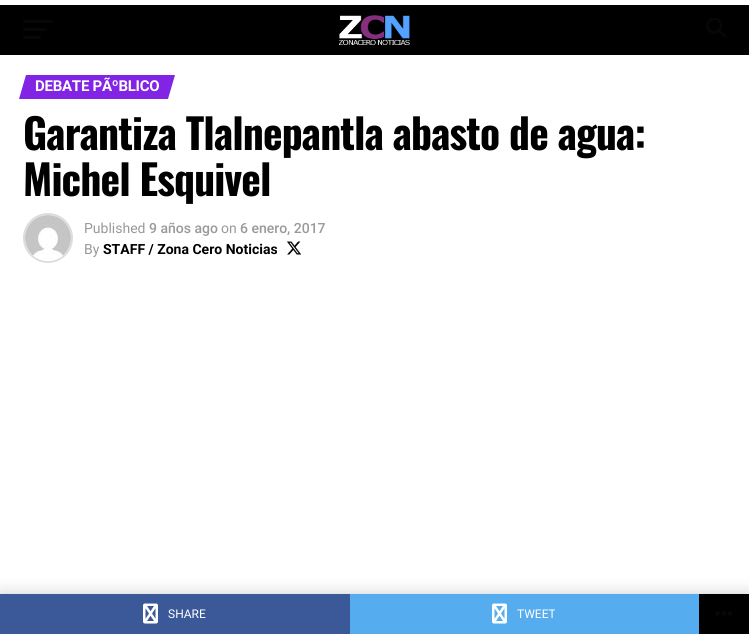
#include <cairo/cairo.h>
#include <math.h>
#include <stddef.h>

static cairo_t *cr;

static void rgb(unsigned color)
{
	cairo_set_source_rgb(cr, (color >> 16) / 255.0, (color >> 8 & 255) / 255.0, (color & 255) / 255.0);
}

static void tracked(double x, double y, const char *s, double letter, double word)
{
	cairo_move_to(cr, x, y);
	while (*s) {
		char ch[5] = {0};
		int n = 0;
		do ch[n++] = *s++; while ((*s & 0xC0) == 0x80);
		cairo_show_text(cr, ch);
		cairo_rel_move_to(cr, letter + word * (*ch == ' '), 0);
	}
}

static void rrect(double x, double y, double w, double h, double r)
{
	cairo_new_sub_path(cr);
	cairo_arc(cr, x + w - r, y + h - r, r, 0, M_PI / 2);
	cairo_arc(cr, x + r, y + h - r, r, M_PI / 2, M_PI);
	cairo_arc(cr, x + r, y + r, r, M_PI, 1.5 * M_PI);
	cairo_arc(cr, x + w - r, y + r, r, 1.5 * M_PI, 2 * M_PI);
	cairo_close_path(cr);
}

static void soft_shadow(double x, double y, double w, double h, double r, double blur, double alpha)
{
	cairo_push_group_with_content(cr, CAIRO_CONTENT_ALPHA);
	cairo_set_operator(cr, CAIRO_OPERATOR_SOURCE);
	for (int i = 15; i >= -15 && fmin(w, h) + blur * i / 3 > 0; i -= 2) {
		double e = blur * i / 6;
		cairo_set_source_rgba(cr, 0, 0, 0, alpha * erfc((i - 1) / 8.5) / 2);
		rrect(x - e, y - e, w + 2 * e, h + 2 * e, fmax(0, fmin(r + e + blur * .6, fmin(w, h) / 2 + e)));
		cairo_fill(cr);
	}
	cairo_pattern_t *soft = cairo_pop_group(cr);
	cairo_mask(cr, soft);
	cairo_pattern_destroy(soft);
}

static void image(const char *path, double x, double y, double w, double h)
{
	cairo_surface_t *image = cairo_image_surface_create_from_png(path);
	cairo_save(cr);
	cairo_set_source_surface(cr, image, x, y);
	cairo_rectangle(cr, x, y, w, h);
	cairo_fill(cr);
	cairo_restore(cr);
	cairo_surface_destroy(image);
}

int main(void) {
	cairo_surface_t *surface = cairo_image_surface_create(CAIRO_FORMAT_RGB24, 749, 634);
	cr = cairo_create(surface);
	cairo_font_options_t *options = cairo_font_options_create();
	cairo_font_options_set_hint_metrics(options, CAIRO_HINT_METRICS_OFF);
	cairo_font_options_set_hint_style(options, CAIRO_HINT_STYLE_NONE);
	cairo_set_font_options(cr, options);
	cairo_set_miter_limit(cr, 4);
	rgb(0xffffff);
	cairo_paint(cr);
	rgb(0x000000);
	cairo_rectangle(cr, 0, 5, 749, 50);
	cairo_fill(cr);
	rgb(0x070707);
	rrect(23, 20, 30, 3, 1.5);
	cairo_fill(cr);
	rrect(23, 28, 24, 3, 1.5);
	cairo_fill(cr);
	rrect(23, 36, 18, 3, 1.5);
	cairo_fill(cr);
	image("img/1.png", 339, 15, 71, 30);
	image("img/2.png", 706, 18, 20, 19);
	rgb(0x8224e3);
	cairo_new_path(cr);
	cairo_move_to(cr, 26, 75);
	cairo_line_to(cr, 175, 75);
	cairo_line_to(cr, 168, 99);
	cairo_line_to(cr, 19, 99);
	cairo_close_path(cr);
	cairo_fill(cr);
	cairo_arc(cr, 48, 238, 24, 0, 2 * M_PI);
	rgb(0xdddddd);
	cairo_stroke(cr);
	image("img/3.png", 25, 215, 46, 46);
	image("img/4.png", 287, 241, 15, 14);
	rgb(0x000000);
	soft_shadow(0, 594, 749, 40, 0, 8, 0.2);
	rgb(0x3b5998);
	cairo_rectangle(cr, 0, 594, 350, 40);
	cairo_fill(cr);
	image("img/5.png", 143, 603, 15, 21);
	rgb(0x55acee);
	cairo_rectangle(cr, 350, 594, 349, 40);
	cairo_fill(cr);
	image("img/6.png", 492, 603, 15, 21);
	rgb(0x000000);
	cairo_rectangle(cr, 699, 594, 50, 40);
	cairo_fill(cr);
	image("img/7.png", 715, 611, 17, 5);
	cairo_select_font_face(cr, "Roboto", CAIRO_FONT_SLANT_NORMAL, CAIRO_FONT_WEIGHT_BOLD);
	cairo_set_font_size(cr, 15);
	rgb(0xffffff);
	tracked(35, 91, "DEBATE PÃºBLICO", -0.25, 0);
	cairo_select_font_face(cr, "Oswald", CAIRO_FONT_SLANT_NORMAL, CAIRO_FONT_WEIGHT_BOLD);
	cairo_set_font_size(cr, 41.6);
	rgb(0x000000);
	tracked(23, 150, "Garantiza Tlalnepantla abasto de agua:", -0.85, 0);
	tracked(23, 196, "Michel Esquivel", -0.85, 0);
	cairo_select_font_face(cr, "Roboto", CAIRO_FONT_SLANT_NORMAL, CAIRO_FONT_WEIGHT_NORMAL);
	cairo_set_font_size(cr, 14);
	rgb(0x999999);
	cairo_move_to(cr, 84, 233);
	cairo_show_text(cr, "Published");
	cairo_select_font_face(cr, "Roboto Medium", CAIRO_FONT_SLANT_NORMAL, CAIRO_FONT_WEIGHT_NORMAL);
	cairo_move_to(cr, 149, 233);
	cairo_show_text(cr, "9 años ago");
	cairo_select_font_face(cr, "Roboto", CAIRO_FONT_SLANT_NORMAL, CAIRO_FONT_WEIGHT_NORMAL);
	cairo_move_to(cr, 221, 233);
	cairo_show_text(cr, "on");
	cairo_select_font_face(cr, "Roboto Medium", CAIRO_FONT_SLANT_NORMAL, CAIRO_FONT_WEIGHT_NORMAL);
	cairo_move_to(cr, 240, 233);
	cairo_show_text(cr, "6 enero, 2017");
	cairo_select_font_face(cr, "Roboto", CAIRO_FONT_SLANT_NORMAL, CAIRO_FONT_WEIGHT_NORMAL);
	cairo_move_to(cr, 84, 254);
	cairo_show_text(cr, "By");
	cairo_select_font_face(cr, "Roboto", CAIRO_FONT_SLANT_NORMAL, CAIRO_FONT_WEIGHT_BOLD);
	rgb(0x000000);
	cairo_move_to(cr, 103, 254);
	cairo_show_text(cr, "STAFF / Zona Cero Noticias");
	cairo_select_font_face(cr, "Roboto", CAIRO_FONT_SLANT_NORMAL, CAIRO_FONT_WEIGHT_NORMAL);
	cairo_set_font_size(cr, 12);
	rgb(0xffffff);
	cairo_move_to(cr, 168, 618);
	cairo_show_text(cr, "SHARE");
	cairo_move_to(cr, 517, 618);
	cairo_show_text(cr, "TWEET");
	cairo_surface_write_to_png(surface, "page.png");
	cairo_font_options_destroy(options);
	cairo_destroy(cr);
	cairo_surface_destroy(surface);
	return 0;
}
